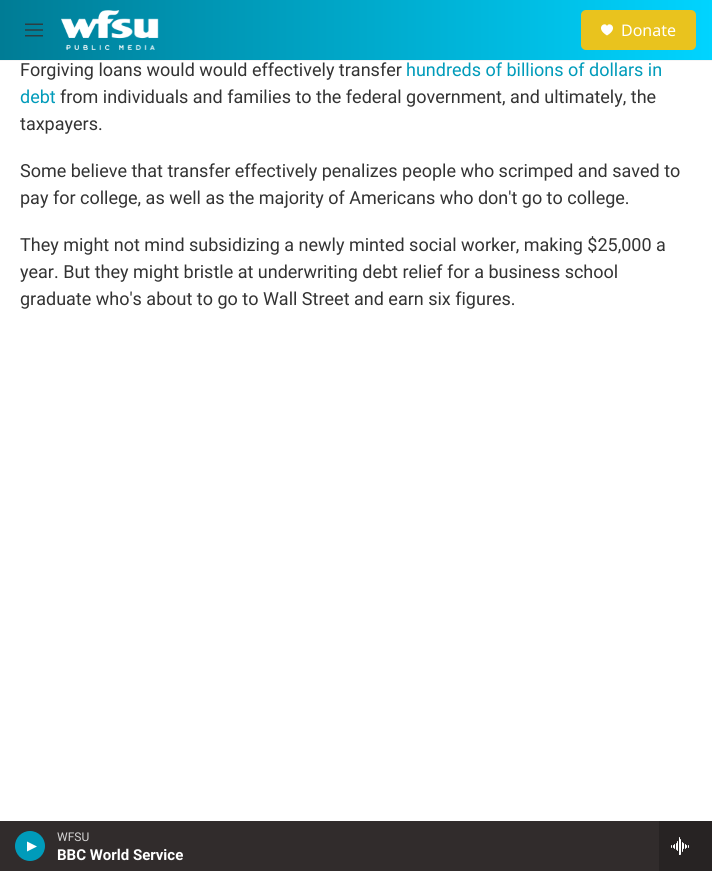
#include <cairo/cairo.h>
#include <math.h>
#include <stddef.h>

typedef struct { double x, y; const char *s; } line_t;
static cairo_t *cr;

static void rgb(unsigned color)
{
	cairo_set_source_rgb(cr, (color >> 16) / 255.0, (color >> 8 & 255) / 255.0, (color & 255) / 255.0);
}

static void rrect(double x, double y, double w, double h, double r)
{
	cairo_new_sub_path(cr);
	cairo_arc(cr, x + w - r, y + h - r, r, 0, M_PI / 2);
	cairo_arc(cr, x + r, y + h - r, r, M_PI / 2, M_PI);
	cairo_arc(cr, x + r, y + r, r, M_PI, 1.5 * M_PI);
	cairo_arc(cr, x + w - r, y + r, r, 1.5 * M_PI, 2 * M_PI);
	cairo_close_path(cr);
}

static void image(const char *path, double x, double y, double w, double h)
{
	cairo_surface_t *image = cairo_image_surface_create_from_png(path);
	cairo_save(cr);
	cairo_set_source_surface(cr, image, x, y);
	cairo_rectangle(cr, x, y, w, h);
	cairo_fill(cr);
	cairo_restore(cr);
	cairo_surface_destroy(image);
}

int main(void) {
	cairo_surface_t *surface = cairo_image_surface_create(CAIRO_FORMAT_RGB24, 712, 871);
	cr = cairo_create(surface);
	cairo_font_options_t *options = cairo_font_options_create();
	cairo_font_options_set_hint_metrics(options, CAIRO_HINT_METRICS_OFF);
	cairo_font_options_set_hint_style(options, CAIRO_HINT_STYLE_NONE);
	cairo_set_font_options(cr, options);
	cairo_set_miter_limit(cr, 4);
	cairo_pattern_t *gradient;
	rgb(0xffffff);
	cairo_paint(cr);
	gradient = cairo_pattern_create_linear(0, 30, 712, 30);
	cairo_pattern_add_color_stop_rgba(gradient, 0, 0, 0.486, 0.584, 1);
	cairo_pattern_add_color_stop_rgba(gradient, 0.35, 0, 0.608, 0.729, 1);
	cairo_pattern_add_color_stop_rgba(gradient, 1, 0, 0.831, 1, 1);
	cairo_set_source(cr, gradient);
	cairo_pattern_destroy(gradient);
	cairo_rectangle(cr, 0, 0, 712, 60);
	cairo_fill(cr);
	rgb(0xf5f5f5);
	cairo_rectangle(cr, 0, 60, 712, 1);
	cairo_fill(cr);
	image("img/1.png", 25, 23, 18, 14);
	image("img/2.png", 61, 10, 98, 40);
	rgb(0xe9c31e);
	rrect(581, 10, 115, 40, 5);
	cairo_fill(cr);
	rgb(0xffffff);
	cairo_new_path(cr);
	cairo_move_to(cr, 607, 26);
	cairo_curve_to(cr, 605, 21, 594.5, 28, 607, 35.5);
	cairo_curve_to(cr, 619.5, 28, 609, 21, 607, 26);
	cairo_close_path(cr);
	cairo_fill(cr);
	rgb(0x312c2c);
	cairo_rectangle(cr, 0, 821, 659, 50);
	cairo_fill(cr);
	rgb(0x009bba);
	cairo_arc(cr, 30, 846, 15, 0, 2 * M_PI);
	cairo_fill(cr);
	rgb(0xffffff);
	cairo_new_path(cr);
	cairo_move_to(cr, 27, 841.5);
	cairo_line_to(cr, 37, 846.5);
	cairo_line_to(cr, 27, 851.5);
	cairo_close_path(cr);
	cairo_fill(cr);
	rgb(0x272323);
	cairo_rectangle(cr, 659, 821, 53, 50);
	cairo_fill(cr);
	image("img/3.png", 671, 837, 18, 18);
	cairo_select_font_face(cr, "Noto Sans", CAIRO_FONT_SLANT_NORMAL, CAIRO_FONT_WEIGHT_NORMAL);
	cairo_set_font_size(cr, 16);
	rgb(0xffffff);
	cairo_move_to(cr, 621, 36);
	cairo_show_text(cr, "Donate");
	cairo_select_font_face(cr, "Roboto", CAIRO_FONT_SLANT_NORMAL, CAIRO_FONT_WEIGHT_NORMAL);
	cairo_set_font_size(cr, 12);
	rgb(0xd6d5d5);
	cairo_move_to(cr, 57, 841);
	cairo_show_text(cr, "WFSU");
	cairo_select_font_face(cr, "Roboto", CAIRO_FONT_SLANT_NORMAL, CAIRO_FONT_WEIGHT_BOLD);
	cairo_set_font_size(cr, 15);
	rgb(0xffffff);
	cairo_move_to(cr, 57, 860);
	cairo_show_text(cr, "BBC World Service");
	cairo_select_font_face(cr, "Roboto", CAIRO_FONT_SLANT_NORMAL, CAIRO_FONT_WEIGHT_NORMAL);
	cairo_set_font_size(cr, 18);
	rgb(0x333333);
	cairo_move_to(cr, 20, 76);
	cairo_show_text(cr, "Forgiving loans would would effectively transfer");
	rgb(0x009bba);
	cairo_move_to(cr, 406, 76);
	cairo_show_text(cr, "hundreds of billions of dollars in");
	cairo_move_to(cr, 20, 103);
	cairo_show_text(cr, "debt");
	rgb(0x333333);
	{
		static const line_t items[] = {
			{60, 103, "from individuals and families to the federal government, and ultimately, the"},
			{20, 130, "taxpayers."},
			{20, 177, "Some believe that transfer effectively penalizes people who scrimped and saved to"},
			{20, 204, "pay for college, as well as the majority of Americans who don't go to college."},
			{20, 251, "They might not mind subsidizing a newly minted social worker, making $25,000 a"},
			{20, 278, "year. But they might bristle at underwriting debt relief for a business school"},
			{20, 305, "graduate who's about to go to Wall Street and earn six figures."},
		};
		for (size_t i = 0; i < sizeof items / sizeof *items; i++) {
			cairo_move_to(cr, items[i].x, items[i].y);
			cairo_show_text(cr, items[i].s);
		}
	}
	cairo_surface_write_to_png(surface, "page.png");
	cairo_font_options_destroy(options);
	cairo_destroy(cr);
	cairo_surface_destroy(surface);
	return 0;
}
